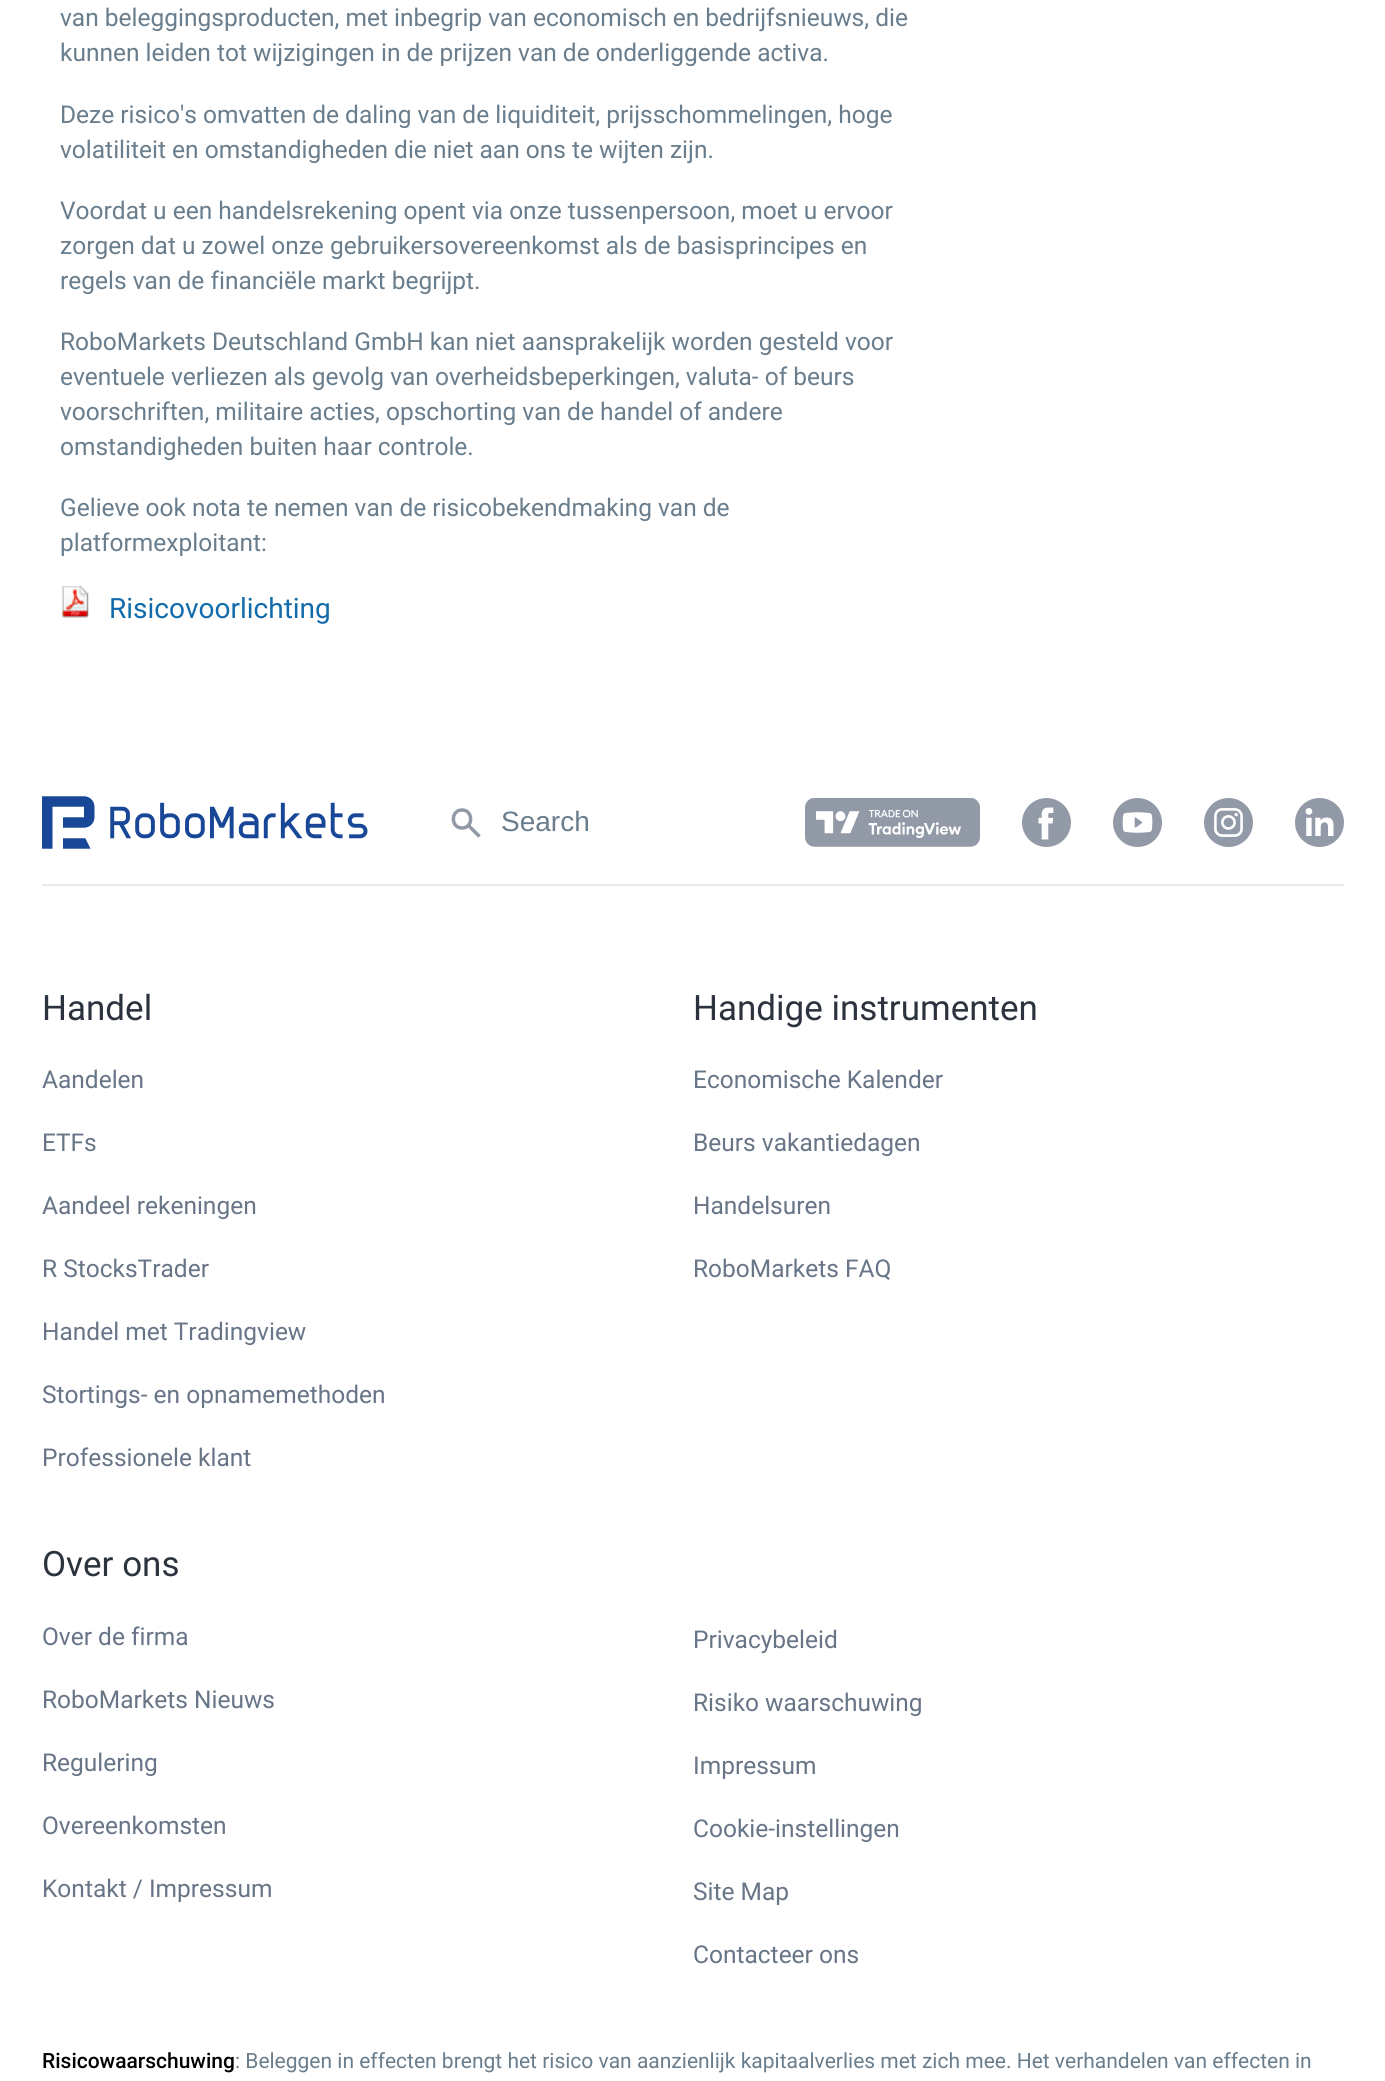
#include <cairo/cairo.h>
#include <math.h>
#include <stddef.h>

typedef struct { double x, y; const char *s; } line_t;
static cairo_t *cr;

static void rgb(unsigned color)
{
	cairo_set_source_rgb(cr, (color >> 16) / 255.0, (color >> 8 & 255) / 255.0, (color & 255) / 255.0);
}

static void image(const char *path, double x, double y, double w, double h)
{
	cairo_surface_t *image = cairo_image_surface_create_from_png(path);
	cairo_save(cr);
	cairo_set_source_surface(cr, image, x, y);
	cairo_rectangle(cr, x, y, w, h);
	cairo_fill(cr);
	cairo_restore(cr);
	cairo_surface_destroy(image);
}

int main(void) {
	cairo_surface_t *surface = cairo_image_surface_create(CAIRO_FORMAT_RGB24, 1385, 2081);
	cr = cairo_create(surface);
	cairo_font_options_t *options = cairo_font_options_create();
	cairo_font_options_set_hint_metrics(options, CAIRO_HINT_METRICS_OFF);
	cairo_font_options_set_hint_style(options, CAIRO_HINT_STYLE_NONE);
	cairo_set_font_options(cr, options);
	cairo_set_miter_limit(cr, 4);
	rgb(0xffffff);
	cairo_paint(cr);
	image("img/1.png", 62, 586, 27, 32);
	image("img/2.png", 42, 796, 326, 53);
	cairo_new_path(cr);
	cairo_move_to(cr, 469, 826);
	cairo_line_to(cr, 479.5, 836.5);
	cairo_move_to(cr, 462, 828);
	cairo_curve_to(cr, 473.5, 828, 473.5, 810, 462, 810);
	cairo_curve_to(cr, 450.5, 810, 450.5, 828, 462, 828);
	cairo_close_path(cr);
	rgb(0x9299a7);
	cairo_set_line_width(cr, 3.5);
	cairo_stroke(cr);
	image("img/3.png", 805, 798, 175, 49);
	image("img/4.png", 1022, 798, 49, 49);
	image("img/5.png", 1113, 798, 49, 49);
	image("img/6.png", 1204, 798, 49, 49);
	image("img/7.png", 1295, 798, 49, 49);
	rgb(0xe6ebef);
	cairo_rectangle(cr, 42, 884, 1302, 2);
	cairo_fill(cr);
	cairo_select_font_face(cr, "Roboto", CAIRO_FONT_SLANT_NORMAL, CAIRO_FONT_WEIGHT_NORMAL);
	cairo_set_font_size(cr, 24.5);
	rgb(0x697d8c);
	{
		static const line_t items[] = {
			{60, 26, "van beleggingsproducten, met inbegrip van economisch en bedrijfsnieuws, die"},
			{60, 61, "kunnen leiden tot wijzigingen in de prijzen van de onderliggende activa."},
			{60, 123, "Deze risico's omvatten de daling van de liquiditeit, prijsschommelingen, hoge"},
			{60, 158, "volatiliteit en omstandigheden die niet aan ons te wijten zijn."},
			{60, 219, "Voordat u een handelsrekening opent via onze tussenpersoon, moet u ervoor"},
			{60, 254, "zorgen dat u zowel onze gebruikersovereenkomst als de basisprincipes en"},
			{60, 289, "regels van de financiële markt begrijpt."},
			{60, 350, "RoboMarkets Deutschland GmbH kan niet aansprakelijk worden gesteld voor"},
			{60, 385, "eventuele verliezen als gevolg van overheidsbeperkingen, valuta- of beurs"},
			{60, 420, "voorschriften, militaire acties, opschorting van de handel of andere"},
			{60, 455, "omstandigheden buiten haar controle."},
			{60, 516, "Gelieve ook nota te nemen van de risicobekendmaking van de"},
			{60, 551, "platformexploitant:"},
		};
		for (size_t i = 0; i < sizeof items / sizeof *items; i++) {
			cairo_move_to(cr, items[i].x, items[i].y);
			cairo_show_text(cr, items[i].s);
		}
	}
	cairo_set_font_size(cr, 28);
	rgb(0x126cab);
	cairo_move_to(cr, 109, 618);
	cairo_show_text(cr, "Risicovoorlichting");
	cairo_select_font_face(cr, "Liberation Sans", CAIRO_FONT_SLANT_NORMAL, CAIRO_FONT_WEIGHT_NORMAL);
	rgb(0x697d8c);
	cairo_move_to(cr, 501, 831);
	cairo_show_text(cr, "Search");
	cairo_select_font_face(cr, "Roboto", CAIRO_FONT_SLANT_NORMAL, CAIRO_FONT_WEIGHT_NORMAL);
	cairo_set_font_size(cr, 35);
	rgb(0x2d333e);
	cairo_move_to(cr, 42, 1020);
	cairo_show_text(cr, "Handel");
	cairo_set_font_size(cr, 24.5);
	rgb(0x687587);
	{
		static const line_t items[] = {
			{42, 1088, "Aandelen"},
			{42, 1151, "ETFs"},
			{42, 1214, "Aandeel rekeningen"},
			{42, 1277, "R StocksTrader"},
			{42, 1340, "Handel met Tradingview"},
			{42, 1403, "Stortings- en opnamemethoden"},
			{42, 1466, "Professionele klant"},
		};
		for (size_t i = 0; i < sizeof items / sizeof *items; i++) {
			cairo_move_to(cr, items[i].x, items[i].y);
			cairo_show_text(cr, items[i].s);
		}
	}
	cairo_set_font_size(cr, 35);
	rgb(0x2d333e);
	cairo_move_to(cr, 693, 1020);
	cairo_show_text(cr, "Handige instrumenten");
	cairo_set_font_size(cr, 24.5);
	rgb(0x687587);
	{
		static const line_t items[] = {
			{693, 1088, "Economische Kalender"},
			{693, 1151, "Beurs vakantiedagen"},
			{693, 1214, "Handelsuren"},
			{693, 1277, "RoboMarkets FAQ"},
		};
		for (size_t i = 0; i < sizeof items / sizeof *items; i++) {
			cairo_move_to(cr, items[i].x, items[i].y);
			cairo_show_text(cr, items[i].s);
		}
	}
	cairo_set_font_size(cr, 35);
	rgb(0x2d333e);
	cairo_move_to(cr, 42, 1576);
	cairo_show_text(cr, "Over ons");
	cairo_set_font_size(cr, 24.5);
	rgb(0x687587);
	{
		static const line_t items[] = {
			{42, 1645, "Over de firma"},
			{42, 1708, "RoboMarkets Nieuws"},
			{42, 1771, "Regulering"},
			{42, 1834, "Overeenkomsten"},
			{42, 1897, "Kontakt / Impressum"},
			{693, 1648, "Privacybeleid"},
			{693, 1711, "Risiko waarschuwing"},
			{693, 1774, "Impressum"},
			{693, 1837, "Cookie-instellingen"},
			{693, 1900, "Site Map"},
			{693, 1963, "Contacteer ons"},
		};
		for (size_t i = 0; i < sizeof items / sizeof *items; i++) {
			cairo_move_to(cr, items[i].x, items[i].y);
			cairo_show_text(cr, items[i].s);
		}
	}
	cairo_select_font_face(cr, "Roboto Medium", CAIRO_FONT_SLANT_NORMAL, CAIRO_FONT_WEIGHT_NORMAL);
	cairo_set_font_size(cr, 21);
	rgb(0x000000);
	cairo_move_to(cr, 42, 2068);
	cairo_show_text(cr, "Risicowaarschuwing");
	cairo_select_font_face(cr, "Roboto", CAIRO_FONT_SLANT_NORMAL, CAIRO_FONT_WEIGHT_NORMAL);
	rgb(0x697d8c);
	cairo_move_to(cr, 235, 2068);
	cairo_show_text(cr, ": Beleggen in effecten brengt het risico van aanzienlijk kapitaalverlies met zich mee. Het verhandelen van effecten in");
	cairo_surface_write_to_png(surface, "page.png");
	cairo_font_options_destroy(options);
	cairo_destroy(cr);
	cairo_surface_destroy(surface);
	return 0;
}
